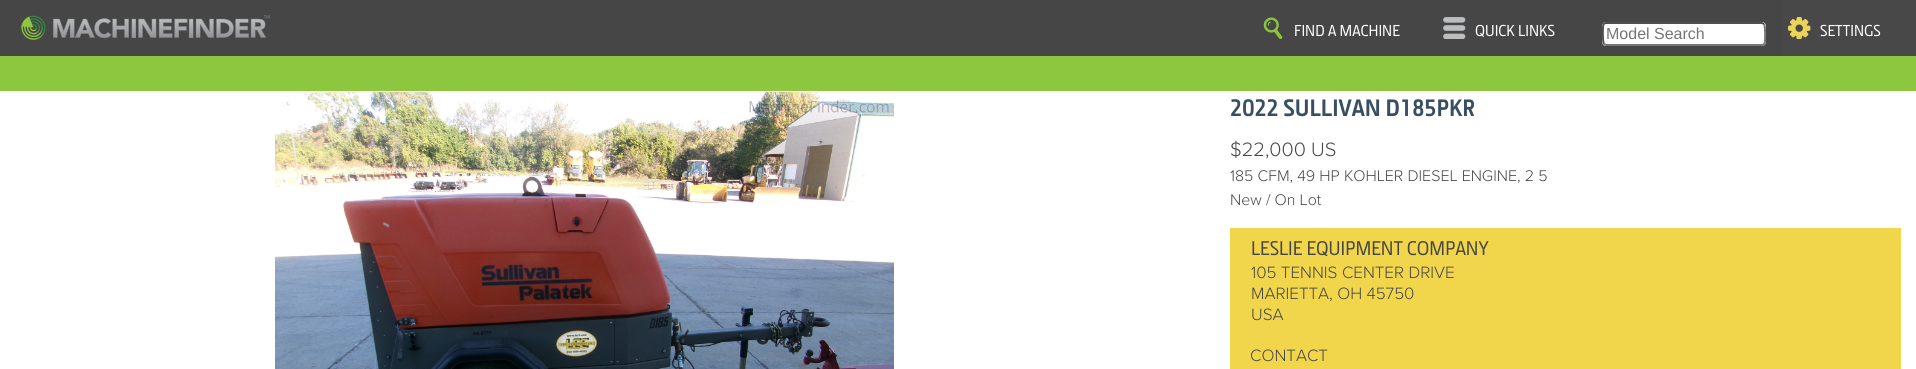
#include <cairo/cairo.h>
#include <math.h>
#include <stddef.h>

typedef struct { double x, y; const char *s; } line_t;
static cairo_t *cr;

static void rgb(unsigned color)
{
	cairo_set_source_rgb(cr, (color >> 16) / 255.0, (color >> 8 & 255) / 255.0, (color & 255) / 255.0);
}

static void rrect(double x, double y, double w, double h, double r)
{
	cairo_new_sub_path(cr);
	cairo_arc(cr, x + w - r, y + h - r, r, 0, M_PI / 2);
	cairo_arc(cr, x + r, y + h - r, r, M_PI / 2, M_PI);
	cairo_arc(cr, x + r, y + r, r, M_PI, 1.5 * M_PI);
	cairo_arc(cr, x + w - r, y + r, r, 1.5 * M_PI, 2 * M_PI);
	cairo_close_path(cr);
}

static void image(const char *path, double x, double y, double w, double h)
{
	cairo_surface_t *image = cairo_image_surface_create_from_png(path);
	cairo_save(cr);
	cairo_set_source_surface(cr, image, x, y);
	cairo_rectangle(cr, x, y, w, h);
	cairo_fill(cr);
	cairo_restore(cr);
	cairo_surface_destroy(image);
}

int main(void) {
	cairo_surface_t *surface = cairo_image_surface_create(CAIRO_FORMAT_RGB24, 1916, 369);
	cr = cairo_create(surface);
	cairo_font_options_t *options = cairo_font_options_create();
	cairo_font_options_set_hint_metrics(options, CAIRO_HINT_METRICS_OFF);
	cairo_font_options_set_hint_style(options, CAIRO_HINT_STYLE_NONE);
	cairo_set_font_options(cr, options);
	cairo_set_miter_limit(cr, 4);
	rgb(0xffffff);
	cairo_paint(cr);
	rgb(0x464646);
	cairo_rectangle(cr, 0, 0, 1782, 56);
	cairo_fill(cr);
	image("img/1.png", 21, 15, 249, 25);
	image("img/2.png", 1263, 17, 20, 22);
	image("img/3.png", 1443, 17, 23, 22);
	rgb(0xffffff);
	rrect(1602, 22, 164, 24, 4);
	cairo_fill(cr);
	cairo_new_path(cr);
	cairo_move_to(cr, 1764, 24);
	cairo_curve_to(cr, 1765.5, 25.5, 1765.5, 42, 1764.5, 43.5);
	cairo_curve_to(cr, 1764, 44.5, 1763, 45, 1762, 45);
	cairo_line_to(cr, 1606, 45);
	cairo_line_to(cr, 1604, 44);
	rgb(0x767676);
	cairo_stroke(cr);
	cairo_new_path(cr);
	cairo_move_to(cr, 1604, 44);
	cairo_curve_to(cr, 1602.5, 42.5, 1602.5, 26, 1603.5, 24.5);
	cairo_curve_to(cr, 1604, 23.5, 1605, 23, 1606, 23);
	cairo_line_to(cr, 1762, 23);
	cairo_line_to(cr, 1764, 24);
	rgb(0x4f4f4f);
	cairo_stroke(cr);
	rgb(0x484848);
	cairo_rectangle(cr, 1782, 0, 134, 56);
	cairo_fill(cr);
	image("img/4.png", 1788, 17, 23, 22);
	rgb(0x8dc63f);
	cairo_rectangle(cr, 0, 56, 1916, 35);
	cairo_fill(cr);
	image("img/5.png", 275, 92, 619, 277);
	rgb(0xf1d54b);
	cairo_rectangle(cr, 1230, 228, 671, 141);
	cairo_fill(cr);
	cairo_select_font_face(cr, "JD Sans", CAIRO_FONT_SLANT_NORMAL, CAIRO_FONT_WEIGHT_NORMAL);
	cairo_set_font_size(cr, 16);
	rgb(0xffffff);
	cairo_move_to(cr, 1294, 36);
	cairo_show_text(cr, "FIND A MACHINE");
	cairo_move_to(cr, 1475, 36);
	cairo_show_text(cr, "QUICK LINKS");
	cairo_select_font_face(cr, "Liberation Sans", CAIRO_FONT_SLANT_NORMAL, CAIRO_FONT_WEIGHT_NORMAL);
	rgb(0x757575);
	cairo_move_to(cr, 1606, 39);
	cairo_show_text(cr, "Model Search");
	cairo_select_font_face(cr, "JD Sans", CAIRO_FONT_SLANT_NORMAL, CAIRO_FONT_WEIGHT_NORMAL);
	rgb(0xffffff);
	cairo_move_to(cr, 1820, 36);
	cairo_show_text(cr, "SETTINGS");
	cairo_select_font_face(cr, "JD Sans", CAIRO_FONT_SLANT_NORMAL, CAIRO_FONT_WEIGHT_BOLD);
	cairo_set_font_size(cr, 24);
	rgb(0x384e62);
	cairo_move_to(cr, 1230, 116);
	cairo_show_text(cr, "2022 SULLIVAN D185PKR");
	cairo_select_font_face(cr, "Proxima Nova Light", CAIRO_FONT_SLANT_NORMAL, CAIRO_FONT_WEIGHT_NORMAL);
	cairo_set_font_size(cr, 20);
	rgb(0x464647);
	cairo_move_to(cr, 1230, 156);
	cairo_show_text(cr, "$22,000 US");
	cairo_set_font_size(cr, 16);
	cairo_move_to(cr, 1230, 181);
	cairo_show_text(cr, "185 CFM, 49 HP KOHLER DIESEL ENGINE, 2 5");
	cairo_move_to(cr, 1230, 205);
	cairo_show_text(cr, "New / On Lot");
	cairo_select_font_face(cr, "JD Sans", CAIRO_FONT_SLANT_NORMAL, CAIRO_FONT_WEIGHT_NORMAL);
	cairo_set_font_size(cr, 20);
	cairo_move_to(cr, 1251, 255);
	cairo_show_text(cr, "LESLIE EQUIPMENT COMPANY");
	cairo_select_font_face(cr, "Proxima Nova Light", CAIRO_FONT_SLANT_NORMAL, CAIRO_FONT_WEIGHT_NORMAL);
	cairo_set_font_size(cr, 17);
	{
		static const line_t items[] = {
			{1251, 278, "105 TENNIS CENTER DRIVE"},
			{1251, 299, "MARIETTA, OH 45750"},
			{1251, 320, "USA"},
			{1250, 361, "CONTACT"},
		};
		for (size_t i = 0; i < sizeof items / sizeof *items; i++) {
			cairo_move_to(cr, items[i].x, items[i].y);
			cairo_show_text(cr, items[i].s);
		}
	}
	cairo_surface_write_to_png(surface, "page.png");
	cairo_font_options_destroy(options);
	cairo_destroy(cr);
	cairo_surface_destroy(surface);
	return 0;
}
